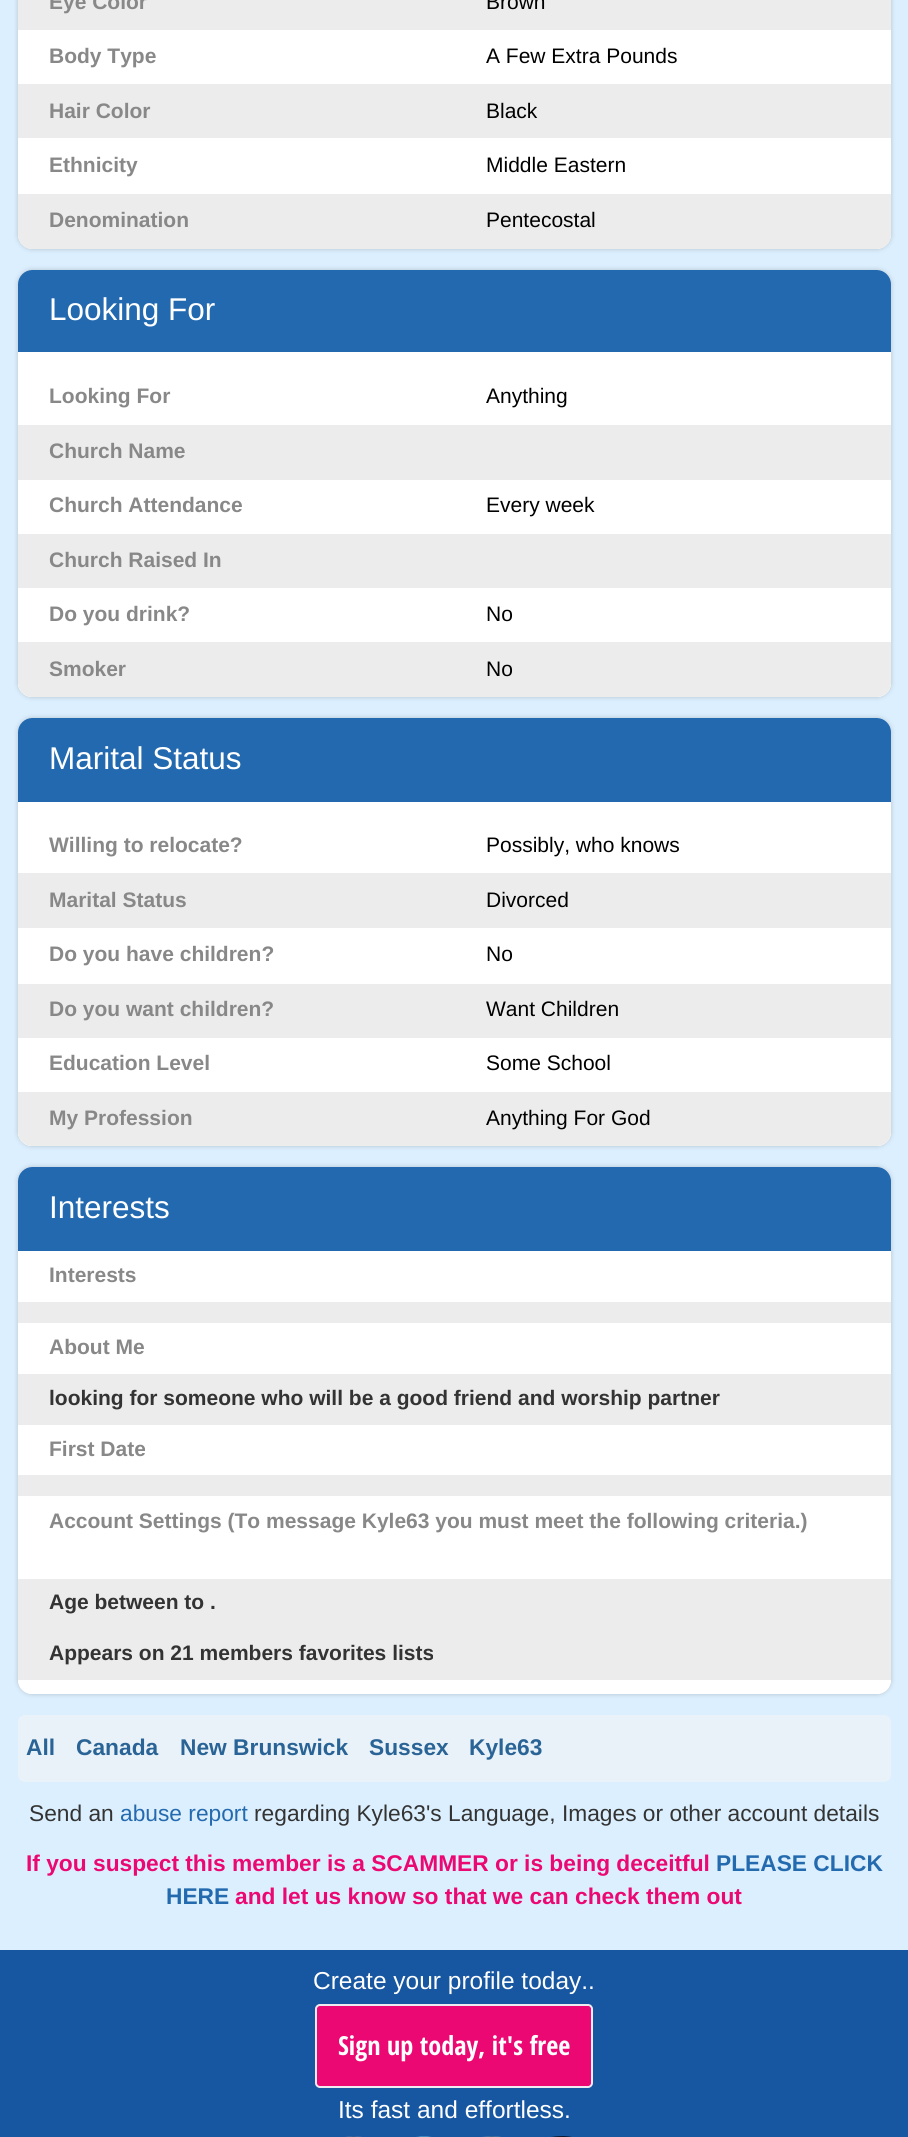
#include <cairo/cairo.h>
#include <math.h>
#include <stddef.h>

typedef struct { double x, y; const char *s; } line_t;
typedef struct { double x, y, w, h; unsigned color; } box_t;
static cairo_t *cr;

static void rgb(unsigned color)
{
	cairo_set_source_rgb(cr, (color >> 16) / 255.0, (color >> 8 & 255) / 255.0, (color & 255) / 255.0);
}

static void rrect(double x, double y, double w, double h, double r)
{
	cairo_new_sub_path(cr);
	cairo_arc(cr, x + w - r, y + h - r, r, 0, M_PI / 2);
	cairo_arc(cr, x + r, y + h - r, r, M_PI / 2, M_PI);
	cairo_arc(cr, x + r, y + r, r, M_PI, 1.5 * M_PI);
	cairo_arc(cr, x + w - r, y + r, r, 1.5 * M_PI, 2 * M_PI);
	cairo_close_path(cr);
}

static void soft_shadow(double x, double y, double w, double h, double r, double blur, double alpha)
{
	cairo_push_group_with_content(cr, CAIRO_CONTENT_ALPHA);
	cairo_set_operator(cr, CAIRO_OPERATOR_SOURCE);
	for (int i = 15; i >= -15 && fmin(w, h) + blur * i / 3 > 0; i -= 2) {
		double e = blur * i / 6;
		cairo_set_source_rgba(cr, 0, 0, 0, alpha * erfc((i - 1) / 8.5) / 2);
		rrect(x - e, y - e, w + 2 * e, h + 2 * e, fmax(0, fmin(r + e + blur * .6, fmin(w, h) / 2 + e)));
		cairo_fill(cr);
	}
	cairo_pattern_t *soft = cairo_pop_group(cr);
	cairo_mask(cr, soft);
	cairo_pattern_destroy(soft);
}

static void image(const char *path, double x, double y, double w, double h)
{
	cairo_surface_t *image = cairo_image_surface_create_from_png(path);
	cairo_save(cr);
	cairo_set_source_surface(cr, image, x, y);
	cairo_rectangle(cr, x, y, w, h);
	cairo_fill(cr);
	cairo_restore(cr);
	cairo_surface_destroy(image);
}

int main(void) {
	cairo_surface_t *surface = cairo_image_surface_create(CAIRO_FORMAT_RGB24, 908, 2137);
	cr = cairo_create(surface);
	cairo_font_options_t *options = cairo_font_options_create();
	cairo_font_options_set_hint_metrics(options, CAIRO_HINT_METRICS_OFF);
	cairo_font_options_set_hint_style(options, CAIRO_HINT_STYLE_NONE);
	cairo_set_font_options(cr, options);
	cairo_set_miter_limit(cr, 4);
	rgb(0xdceffe);
	cairo_paint(cr);
	rgb(0x000000);
	soft_shadow(18, -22, 873, 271, 14, 2.5, 0.2);
	cairo_save(cr);
	rrect(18, -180, 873, 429, 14);
	cairo_clip(cr);
	soft_shadow(18, -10, 873, 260, 7, 1, 0.05);
	cairo_restore(cr);
	rgb(0xffffff);
	cairo_new_path(cr);
	cairo_move_to(cr, 25, -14);
	cairo_line_to(cr, 884, -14);
	cairo_curve_to(cr, 888, -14, 891, -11, 891, -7);
	cairo_line_to(cr, 891, 235);
	cairo_curve_to(cr, 891, 242.5, 884.5, 249, 877, 249);
	cairo_line_to(cr, 32, 249);
	cairo_curve_to(cr, 24.5, 249, 18, 242.5, 18, 235);
	cairo_line_to(cr, 18, -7);
	cairo_curve_to(cr, 18, -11, 21, -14, 25, -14);
	cairo_close_path(cr);
	cairo_fill(cr);
	rgb(0xececec);
	cairo_rectangle(cr, 18, 0, 873, 30);
	cairo_fill(cr);
	cairo_rectangle(cr, 18, 84, 873, 54);
	cairo_fill(cr);
	cairo_new_path(cr);
	cairo_move_to(cr, 18, 194);
	cairo_line_to(cr, 891, 194);
	cairo_line_to(cr, 891, 235);
	cairo_curve_to(cr, 891, 242.5, 884.5, 249, 877, 249);
	cairo_line_to(cr, 32, 249);
	cairo_curve_to(cr, 24.5, 249, 18, 242.5, 18, 235);
	cairo_close_path(cr);
	cairo_fill(cr);
	rgb(0x000000);
	soft_shadow(18, 270, 873, 427, 14, 2.5, 0.2);
	cairo_save(cr);
	rrect(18, 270, 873, 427, 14);
	cairo_clip(cr);
	soft_shadow(18, 271, 873, 427, 7, 1, 0.05);
	cairo_restore(cr);
	rgb(0xffffff);
	rrect(18, 270, 873, 427, 14);
	cairo_fill(cr);
	rgb(0x2269b0);
	cairo_new_path(cr);
	cairo_move_to(cr, 32, 270);
	cairo_line_to(cr, 877, 270);
	cairo_curve_to(cr, 884.5, 270, 891, 276.5, 891, 284);
	cairo_line_to(cr, 891, 352);
	cairo_line_to(cr, 18, 352);
	cairo_line_to(cr, 18, 284);
	cairo_curve_to(cr, 18, 276.5, 24.5, 270, 32, 270);
	cairo_close_path(cr);
	cairo_fill(cr);
	rgb(0xffffff);
	cairo_new_path(cr);
	cairo_move_to(cr, 25, 369);
	cairo_line_to(cr, 884, 369);
	cairo_curve_to(cr, 888, 369, 891, 372, 891, 376);
	cairo_line_to(cr, 891, 683);
	cairo_curve_to(cr, 891, 690.5, 884.5, 697, 877, 697);
	cairo_line_to(cr, 32, 697);
	cairo_curve_to(cr, 24.5, 697, 18, 690.5, 18, 683);
	cairo_line_to(cr, 18, 376);
	cairo_curve_to(cr, 18, 372, 21, 369, 25, 369);
	cairo_close_path(cr);
	cairo_fill(cr);
	rgb(0xececec);
	cairo_rectangle(cr, 18, 425, 873, 55);
	cairo_fill(cr);
	cairo_rectangle(cr, 18, 534, 873, 54);
	cairo_fill(cr);
	cairo_new_path(cr);
	cairo_move_to(cr, 18, 642);
	cairo_line_to(cr, 891, 642);
	cairo_line_to(cr, 891, 683);
	cairo_curve_to(cr, 891, 690.5, 884.5, 697, 877, 697);
	cairo_line_to(cr, 32, 697);
	cairo_curve_to(cr, 24.5, 697, 18, 690.5, 18, 683);
	cairo_close_path(cr);
	cairo_fill(cr);
	rgb(0x000000);
	soft_shadow(18, 718, 873, 428, 14, 2.5, 0.2);
	rgb(0xffffff);
	rrect(18, 718, 873, 428, 14);
	cairo_fill(cr);
	rgb(0x2269b0);
	cairo_new_path(cr);
	cairo_move_to(cr, 32, 718);
	cairo_line_to(cr, 877, 718);
	cairo_curve_to(cr, 884.5, 718, 891, 724.5, 891, 732);
	cairo_line_to(cr, 891, 802);
	cairo_line_to(cr, 18, 802);
	cairo_line_to(cr, 18, 732);
	cairo_curve_to(cr, 18, 724.5, 24.5, 718, 32, 718);
	cairo_close_path(cr);
	cairo_fill(cr);
	rgb(0xffffff);
	cairo_new_path(cr);
	cairo_move_to(cr, 25, 819);
	cairo_line_to(cr, 884, 819);
	cairo_curve_to(cr, 888, 819, 891, 822, 891, 826);
	cairo_line_to(cr, 891, 1132);
	cairo_curve_to(cr, 891, 1139.5, 884.5, 1146, 877, 1146);
	cairo_line_to(cr, 32, 1146);
	cairo_curve_to(cr, 24.5, 1146, 18, 1139.5, 18, 1132);
	cairo_line_to(cr, 18, 826);
	cairo_curve_to(cr, 18, 822, 21, 819, 25, 819);
	cairo_close_path(cr);
	cairo_fill(cr);
	rgb(0xececec);
	cairo_rectangle(cr, 18, 873, 873, 55);
	cairo_fill(cr);
	cairo_rectangle(cr, 18, 984, 873, 54);
	cairo_fill(cr);
	cairo_new_path(cr);
	cairo_move_to(cr, 18, 1092);
	cairo_line_to(cr, 891, 1092);
	cairo_line_to(cr, 891, 1132);
	cairo_curve_to(cr, 891, 1139.5, 884.5, 1146, 877, 1146);
	cairo_line_to(cr, 32, 1146);
	cairo_curve_to(cr, 24.5, 1146, 18, 1139.5, 18, 1132);
	cairo_close_path(cr);
	cairo_fill(cr);
	rgb(0x000000);
	soft_shadow(18, 1167, 873, 527, 14, 2.5, 0.2);
	rgb(0xffffff);
	rrect(18, 1167, 873, 527, 14);
	cairo_fill(cr);
	rgb(0x2269b0);
	cairo_new_path(cr);
	cairo_move_to(cr, 32, 1167);
	cairo_line_to(cr, 877, 1167);
	cairo_curve_to(cr, 884.5, 1167, 891, 1173.5, 891, 1181);
	cairo_line_to(cr, 891, 1251);
	cairo_line_to(cr, 18, 1251);
	cairo_line_to(cr, 18, 1181);
	cairo_curve_to(cr, 18, 1173.5, 24.5, 1167, 32, 1167);
	cairo_close_path(cr);
	cairo_fill(cr);
	rgb(0xffffff);
	cairo_new_path(cr);
	cairo_move_to(cr, 25, 1251);
	cairo_line_to(cr, 884, 1251);
	cairo_curve_to(cr, 888, 1251, 891, 1254, 891, 1258);
	cairo_line_to(cr, 891, 1680);
	cairo_curve_to(cr, 891, 1687.5, 884.5, 1694, 877, 1694);
	cairo_line_to(cr, 32, 1694);
	cairo_curve_to(cr, 24.5, 1694, 18, 1687.5, 18, 1680);
	cairo_line_to(cr, 18, 1258);
	cairo_curve_to(cr, 18, 1254, 21, 1251, 25, 1251);
	cairo_close_path(cr);
	cairo_fill(cr);
	{
		static const box_t items[] = {
			{18, 1302, 873, 21, 0xececec},
			{18, 1374, 873, 51, 0xececec},
			{18, 1475, 873, 21, 0xececec},
			{18, 1579, 873, 101, 0xececec},
		};
		for (size_t i = 0; i < sizeof items / sizeof *items; i++) {
			rgb(items[i].color);
			cairo_rectangle(cr, items[i].x, items[i].y, items[i].w, items[i].h);
			cairo_fill(cr);
		}
	}
	rgb(0xe9f2f9);
	rrect(18, 1715, 873, 67, 7);
	cairo_fill(cr);
	rgb(0x1756a0);
	cairo_rectangle(cr, 0, 1950, 908, 187);
	cairo_fill(cr);
	rgb(0xeb0873);
	rrect(316, 2005, 276, 82, 4);
	cairo_fill_preserve(cr);
	rgb(0xeeecf1);
	cairo_stroke(cr);
	image("img/1.png", 345, 2136, 17, 1);
	image("img/2.png", 416, 2136, 16, 1);
	image("img/3.png", 482, 2136, 19, 1);
	image("img/4.png", 551, 2136, 21, 1);
	cairo_select_font_face(cr, "Liberation Sans", CAIRO_FONT_SLANT_NORMAL, CAIRO_FONT_WEIGHT_BOLD);
	cairo_set_font_size(cr, 21);
	rgb(0x888888);
	cairo_move_to(cr, 49, 9);
	cairo_show_text(cr, "Eye Color");
	cairo_select_font_face(cr, "Liberation Sans", CAIRO_FONT_SLANT_NORMAL, CAIRO_FONT_WEIGHT_NORMAL);
	rgb(0x000000);
	cairo_move_to(cr, 486, 9);
	cairo_show_text(cr, "Brown");
	cairo_select_font_face(cr, "Liberation Sans", CAIRO_FONT_SLANT_NORMAL, CAIRO_FONT_WEIGHT_BOLD);
	rgb(0x888888);
	cairo_move_to(cr, 49, 63);
	cairo_show_text(cr, "Body Type");
	cairo_select_font_face(cr, "Liberation Sans", CAIRO_FONT_SLANT_NORMAL, CAIRO_FONT_WEIGHT_NORMAL);
	rgb(0x000000);
	cairo_move_to(cr, 486, 63);
	cairo_show_text(cr, "A Few Extra Pounds");
	cairo_select_font_face(cr, "Liberation Sans", CAIRO_FONT_SLANT_NORMAL, CAIRO_FONT_WEIGHT_BOLD);
	rgb(0x888888);
	cairo_move_to(cr, 49, 118);
	cairo_show_text(cr, "Hair Color");
	cairo_select_font_face(cr, "Liberation Sans", CAIRO_FONT_SLANT_NORMAL, CAIRO_FONT_WEIGHT_NORMAL);
	rgb(0x000000);
	cairo_move_to(cr, 486, 118);
	cairo_show_text(cr, "Black");
	cairo_select_font_face(cr, "Liberation Sans", CAIRO_FONT_SLANT_NORMAL, CAIRO_FONT_WEIGHT_BOLD);
	rgb(0x888888);
	cairo_move_to(cr, 49, 172);
	cairo_show_text(cr, "Ethnicity");
	cairo_select_font_face(cr, "Liberation Sans", CAIRO_FONT_SLANT_NORMAL, CAIRO_FONT_WEIGHT_NORMAL);
	rgb(0x000000);
	cairo_move_to(cr, 486, 172);
	cairo_show_text(cr, "Middle Eastern");
	cairo_select_font_face(cr, "Liberation Sans", CAIRO_FONT_SLANT_NORMAL, CAIRO_FONT_WEIGHT_BOLD);
	rgb(0x888888);
	cairo_move_to(cr, 49, 227);
	cairo_show_text(cr, "Denomination");
	cairo_select_font_face(cr, "Liberation Sans", CAIRO_FONT_SLANT_NORMAL, CAIRO_FONT_WEIGHT_NORMAL);
	rgb(0x000000);
	cairo_move_to(cr, 486, 227);
	cairo_show_text(cr, "Pentecostal");
	cairo_set_font_size(cr, 31.5);
	rgb(0xffffff);
	cairo_move_to(cr, 49, 320);
	cairo_show_text(cr, "Looking For");
	cairo_select_font_face(cr, "Liberation Sans", CAIRO_FONT_SLANT_NORMAL, CAIRO_FONT_WEIGHT_BOLD);
	cairo_set_font_size(cr, 21);
	rgb(0x888888);
	cairo_move_to(cr, 49, 403);
	cairo_show_text(cr, "Looking For");
	cairo_select_font_face(cr, "Liberation Sans", CAIRO_FONT_SLANT_NORMAL, CAIRO_FONT_WEIGHT_NORMAL);
	rgb(0x000000);
	cairo_move_to(cr, 486, 403);
	cairo_show_text(cr, "Anything");
	cairo_select_font_face(cr, "Liberation Sans", CAIRO_FONT_SLANT_NORMAL, CAIRO_FONT_WEIGHT_BOLD);
	rgb(0x888888);
	cairo_move_to(cr, 49, 458);
	cairo_show_text(cr, "Church Name");
	cairo_move_to(cr, 49, 512);
	cairo_show_text(cr, "Church Attendance");
	cairo_select_font_face(cr, "Liberation Sans", CAIRO_FONT_SLANT_NORMAL, CAIRO_FONT_WEIGHT_NORMAL);
	rgb(0x000000);
	cairo_move_to(cr, 486, 512);
	cairo_show_text(cr, "Every week");
	cairo_select_font_face(cr, "Liberation Sans", CAIRO_FONT_SLANT_NORMAL, CAIRO_FONT_WEIGHT_BOLD);
	rgb(0x888888);
	cairo_move_to(cr, 49, 567);
	cairo_show_text(cr, "Church Raised In");
	cairo_move_to(cr, 49, 621);
	cairo_show_text(cr, "Do you drink?");
	cairo_select_font_face(cr, "Liberation Sans", CAIRO_FONT_SLANT_NORMAL, CAIRO_FONT_WEIGHT_NORMAL);
	rgb(0x000000);
	cairo_move_to(cr, 486, 621);
	cairo_show_text(cr, "No");
	cairo_select_font_face(cr, "Liberation Sans", CAIRO_FONT_SLANT_NORMAL, CAIRO_FONT_WEIGHT_BOLD);
	rgb(0x888888);
	cairo_move_to(cr, 49, 676);
	cairo_show_text(cr, "Smoker");
	cairo_select_font_face(cr, "Liberation Sans", CAIRO_FONT_SLANT_NORMAL, CAIRO_FONT_WEIGHT_NORMAL);
	rgb(0x000000);
	cairo_move_to(cr, 486, 676);
	cairo_show_text(cr, "No");
	cairo_set_font_size(cr, 31.5);
	rgb(0xffffff);
	cairo_move_to(cr, 49, 769);
	cairo_show_text(cr, "Marital Status");
	cairo_select_font_face(cr, "Liberation Sans", CAIRO_FONT_SLANT_NORMAL, CAIRO_FONT_WEIGHT_BOLD);
	cairo_set_font_size(cr, 21);
	rgb(0x888888);
	cairo_move_to(cr, 49, 852);
	cairo_show_text(cr, "Willing to relocate?");
	cairo_select_font_face(cr, "Liberation Sans", CAIRO_FONT_SLANT_NORMAL, CAIRO_FONT_WEIGHT_NORMAL);
	rgb(0x000000);
	cairo_move_to(cr, 486, 852);
	cairo_show_text(cr, "Possibly, who knows");
	cairo_select_font_face(cr, "Liberation Sans", CAIRO_FONT_SLANT_NORMAL, CAIRO_FONT_WEIGHT_BOLD);
	rgb(0x888888);
	cairo_move_to(cr, 49, 907);
	cairo_show_text(cr, "Marital Status");
	cairo_select_font_face(cr, "Liberation Sans", CAIRO_FONT_SLANT_NORMAL, CAIRO_FONT_WEIGHT_NORMAL);
	rgb(0x000000);
	cairo_move_to(cr, 486, 907);
	cairo_show_text(cr, "Divorced");
	cairo_select_font_face(cr, "Liberation Sans", CAIRO_FONT_SLANT_NORMAL, CAIRO_FONT_WEIGHT_BOLD);
	rgb(0x888888);
	cairo_move_to(cr, 49, 961);
	cairo_show_text(cr, "Do you have children?");
	cairo_select_font_face(cr, "Liberation Sans", CAIRO_FONT_SLANT_NORMAL, CAIRO_FONT_WEIGHT_NORMAL);
	rgb(0x000000);
	cairo_move_to(cr, 486, 961);
	cairo_show_text(cr, "No");
	cairo_select_font_face(cr, "Liberation Sans", CAIRO_FONT_SLANT_NORMAL, CAIRO_FONT_WEIGHT_BOLD);
	rgb(0x888888);
	cairo_move_to(cr, 49, 1016);
	cairo_show_text(cr, "Do you want children?");
	cairo_select_font_face(cr, "Liberation Sans", CAIRO_FONT_SLANT_NORMAL, CAIRO_FONT_WEIGHT_NORMAL);
	rgb(0x000000);
	cairo_move_to(cr, 486, 1016);
	cairo_show_text(cr, "Want Children");
	cairo_select_font_face(cr, "Liberation Sans", CAIRO_FONT_SLANT_NORMAL, CAIRO_FONT_WEIGHT_BOLD);
	rgb(0x888888);
	cairo_move_to(cr, 49, 1070);
	cairo_show_text(cr, "Education Level");
	cairo_select_font_face(cr, "Liberation Sans", CAIRO_FONT_SLANT_NORMAL, CAIRO_FONT_WEIGHT_NORMAL);
	rgb(0x000000);
	cairo_move_to(cr, 486, 1070);
	cairo_show_text(cr, "Some School");
	cairo_select_font_face(cr, "Liberation Sans", CAIRO_FONT_SLANT_NORMAL, CAIRO_FONT_WEIGHT_BOLD);
	rgb(0x888888);
	cairo_move_to(cr, 49, 1125);
	cairo_show_text(cr, "My Profession");
	cairo_select_font_face(cr, "Liberation Sans", CAIRO_FONT_SLANT_NORMAL, CAIRO_FONT_WEIGHT_NORMAL);
	rgb(0x000000);
	cairo_move_to(cr, 486, 1125);
	cairo_show_text(cr, "Anything For God");
	cairo_set_font_size(cr, 31.5);
	rgb(0xffffff);
	cairo_move_to(cr, 49, 1218);
	cairo_show_text(cr, "Interests");
	cairo_select_font_face(cr, "Liberation Sans", CAIRO_FONT_SLANT_NORMAL, CAIRO_FONT_WEIGHT_BOLD);
	cairo_set_font_size(cr, 21);
	rgb(0x888888);
	cairo_move_to(cr, 49, 1282);
	cairo_show_text(cr, "Interests");
	cairo_move_to(cr, 49, 1354);
	cairo_show_text(cr, "About Me");
	rgb(0x333333);
	cairo_move_to(cr, 49, 1405);
	cairo_show_text(cr, "looking for someone who will be a good friend and worship partner");
	rgb(0x888888);
	cairo_move_to(cr, 49, 1456);
	cairo_show_text(cr, "First Date");
	cairo_move_to(cr, 49, 1528);
	cairo_show_text(cr, "Account Settings (To message Kyle63 you must meet the following criteria.)");
	rgb(0x333333);
	cairo_move_to(cr, 49, 1609);
	cairo_show_text(cr, "Age between to .");
	cairo_move_to(cr, 49, 1660);
	cairo_show_text(cr, "Appears on 21 members favorites lists");
	cairo_set_font_size(cr, 22.75);
	rgb(0x2a6496);
	{
		static const line_t items[] = {
			{26, 1755, "All"},
			{76, 1755, "Canada"},
			{180, 1755, "New Brunswick"},
			{369, 1755, "Sussex"},
			{469, 1755, "Kyle63"},
		};
		for (size_t i = 0; i < sizeof items / sizeof *items; i++) {
			cairo_move_to(cr, items[i].x, items[i].y);
			cairo_show_text(cr, items[i].s);
		}
	}
	cairo_select_font_face(cr, "Liberation Sans", CAIRO_FONT_SLANT_NORMAL, CAIRO_FONT_WEIGHT_NORMAL);
	rgb(0x333333);
	cairo_move_to(cr, 29, 1821);
	cairo_show_text(cr, "Send an");
	rgb(0x246aaf);
	cairo_move_to(cr, 120, 1821);
	cairo_show_text(cr, "abuse report");
	rgb(0x333333);
	cairo_move_to(cr, 254, 1821);
	cairo_show_text(cr, "regarding Kyle63's Language, Images or other account details");
	cairo_select_font_face(cr, "Liberation Sans", CAIRO_FONT_SLANT_NORMAL, CAIRO_FONT_WEIGHT_BOLD);
	rgb(0xeb0873);
	cairo_move_to(cr, 26, 1871);
	cairo_show_text(cr, "If you suspect this member is a SCAMMER or is being deceitful");
	rgb(0x246aaf);
	cairo_move_to(cr, 716, 1871);
	cairo_show_text(cr, "PLEASE CLICK");
	cairo_move_to(cr, 166, 1904);
	cairo_show_text(cr, "HERE");
	rgb(0xeb0873);
	cairo_move_to(cr, 235, 1904);
	cairo_show_text(cr, "and let us know so that we can check them out");
	cairo_select_font_face(cr, "Liberation Sans", CAIRO_FONT_SLANT_NORMAL, CAIRO_FONT_WEIGHT_NORMAL);
	cairo_set_font_size(cr, 24.5);
	rgb(0xffffff);
	cairo_move_to(cr, 313, 1989);
	cairo_show_text(cr, "Create your profile today..");
	cairo_select_font_face(cr, "Open Sans Condensed", CAIRO_FONT_SLANT_NORMAL, CAIRO_FONT_WEIGHT_BOLD);
	cairo_set_font_size(cr, 26.25);
	cairo_move_to(cr, 338, 2055);
	cairo_show_text(cr, "Sign up today, it's free");
	cairo_select_font_face(cr, "Liberation Sans", CAIRO_FONT_SLANT_NORMAL, CAIRO_FONT_WEIGHT_NORMAL);
	cairo_set_font_size(cr, 24.5);
	cairo_move_to(cr, 338, 2118);
	cairo_show_text(cr, "Its fast and effortless.");
	cairo_surface_write_to_png(surface, "page.png");
	cairo_font_options_destroy(options);
	cairo_destroy(cr);
	cairo_surface_destroy(surface);
	return 0;
}
